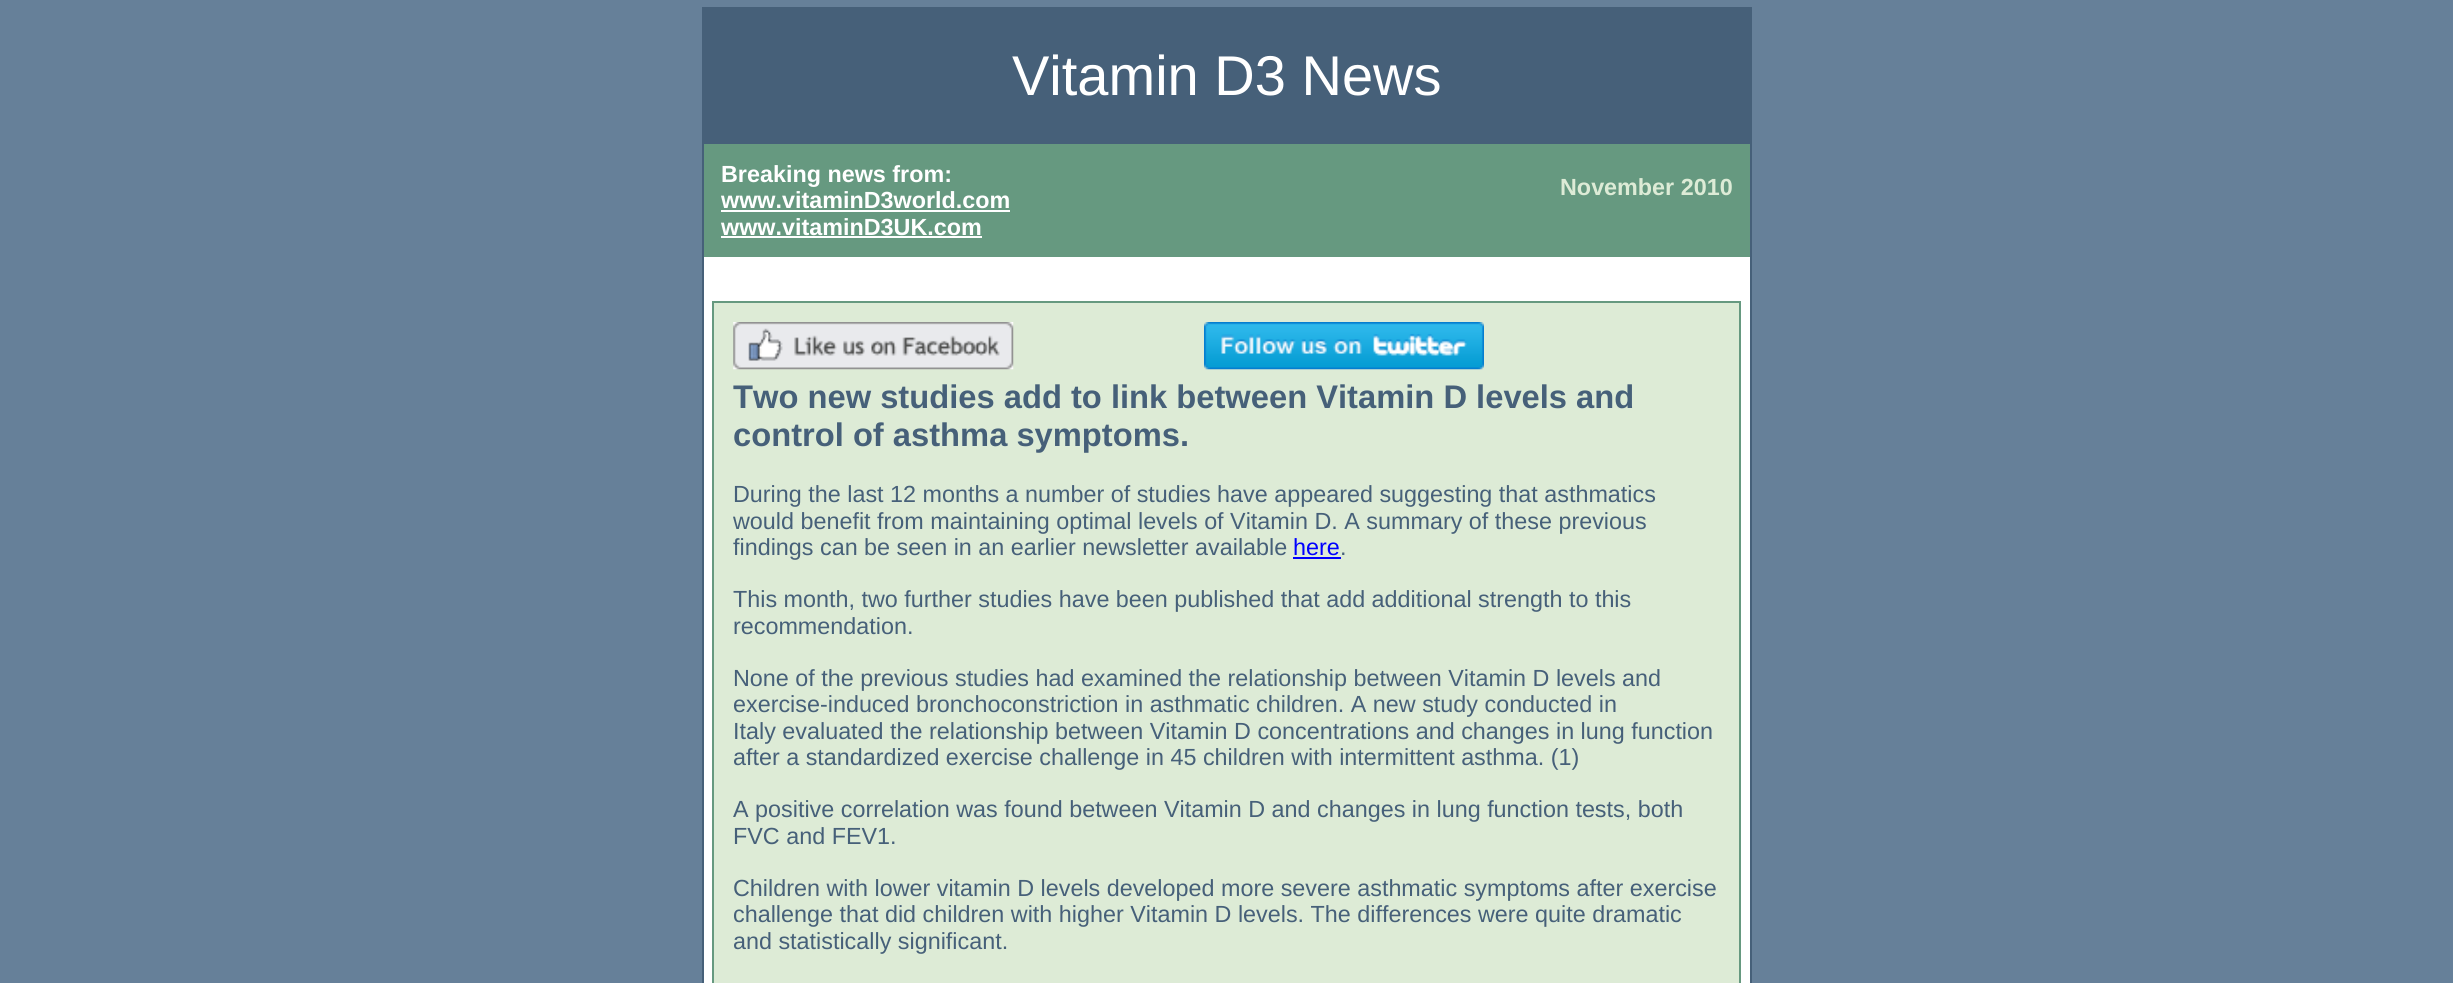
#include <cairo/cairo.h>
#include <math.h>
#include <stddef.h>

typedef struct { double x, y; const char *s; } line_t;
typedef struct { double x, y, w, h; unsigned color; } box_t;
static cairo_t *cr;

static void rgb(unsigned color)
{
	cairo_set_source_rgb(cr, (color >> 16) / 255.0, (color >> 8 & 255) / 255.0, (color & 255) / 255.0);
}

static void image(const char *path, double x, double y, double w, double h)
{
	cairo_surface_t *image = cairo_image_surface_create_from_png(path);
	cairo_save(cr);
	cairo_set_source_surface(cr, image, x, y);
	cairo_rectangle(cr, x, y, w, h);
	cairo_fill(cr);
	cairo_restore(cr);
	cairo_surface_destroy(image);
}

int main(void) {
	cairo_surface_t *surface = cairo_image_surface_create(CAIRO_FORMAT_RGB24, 2453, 983);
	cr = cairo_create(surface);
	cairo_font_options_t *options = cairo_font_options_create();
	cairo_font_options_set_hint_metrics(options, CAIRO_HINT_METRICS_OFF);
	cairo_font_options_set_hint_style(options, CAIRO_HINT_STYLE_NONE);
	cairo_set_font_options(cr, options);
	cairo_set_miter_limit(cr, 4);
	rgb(0x668099);
	cairo_paint(cr);
	{
		static const box_t items[] = {
			{702, 7, 1050, 976, 0x466079},
			{704, 144, 1046, 113, 0x669980},
			{721, 210, 289, 2, 0xffffff},
			{721, 236, 261, 2, 0xffffff},
			{704, 257, 1046, 726, 0xffffff},
		};
		for (size_t i = 0; i < sizeof items / sizeof *items; i++) {
			rgb(items[i].color);
			cairo_rectangle(cr, items[i].x, items[i].y, items[i].w, items[i].h);
			cairo_fill(cr);
		}
	}
	rgb(0xddebd6);
	cairo_rectangle(cr, 713, 302, 1027, 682);
	cairo_fill_preserve(cr);
	rgb(0x669980);
	cairo_stroke(cr);
	image("img/1.png", 733, 322, 281, 48);
	image("img/2.png", 1204, 322, 280, 48);
	rgb(0x0000ff);
	cairo_rectangle(cr, 1293, 557, 48, 2);
	cairo_fill(cr);
	cairo_select_font_face(cr, "Liberation Sans", CAIRO_FONT_SLANT_NORMAL, CAIRO_FONT_WEIGHT_NORMAL);
	cairo_set_font_size(cr, 56);
	rgb(0xffffff);
	cairo_move_to(cr, 1012, 95);
	cairo_show_text(cr, "Vitamin D3 News");
	cairo_select_font_face(cr, "Liberation Sans", CAIRO_FONT_SLANT_NORMAL, CAIRO_FONT_WEIGHT_BOLD);
	cairo_set_font_size(cr, 23.35);
	{
		static const line_t items[] = {
			{721, 182, "Breaking news from:"},
			{721, 208, "www.vitaminD3world.com"},
			{721, 235, "www.vitaminD3UK.com"},
		};
		for (size_t i = 0; i < sizeof items / sizeof *items; i++) {
			cairo_move_to(cr, items[i].x, items[i].y);
			cairo_show_text(cr, items[i].s);
		}
	}
	rgb(0xddebd6);
	cairo_move_to(cr, 1560, 195);
	cairo_show_text(cr, "November 2010");
	cairo_set_font_size(cr, 32.7);
	rgb(0x466079);
	cairo_move_to(cr, 733, 408);
	cairo_show_text(cr, "Two new studies add to link between Vitamin D levels and");
	cairo_move_to(cr, 733, 446);
	cairo_show_text(cr, "control of asthma symptoms.");
	cairo_select_font_face(cr, "Liberation Sans", CAIRO_FONT_SLANT_NORMAL, CAIRO_FONT_WEIGHT_NORMAL);
	cairo_set_font_size(cr, 23.35);
	{
		static const line_t items[] = {
			{733, 502, "During the last 12 months a number of studies have appeared suggesting that asthmatics"},
			{733, 529, "would benefit from maintaining optimal levels of Vitamin D. A summary of these previous"},
			{733, 555, "findings can be seen in an earlier newsletter available"},
		};
		for (size_t i = 0; i < sizeof items / sizeof *items; i++) {
			cairo_move_to(cr, items[i].x, items[i].y);
			cairo_show_text(cr, items[i].s);
		}
	}
	rgb(0x0000ff);
	cairo_move_to(cr, 1293, 555);
	cairo_show_text(cr, "here");
	rgb(0x466079);
	{
		static const line_t items[] = {
			{1340, 555, "."},
			{733, 607, "This month, two further studies have been published that add additional strength to this"},
			{733, 634, "recommendation."},
			{733, 686, "None of the previous studies had examined the relationship between Vitamin D levels and"},
			{733, 712, "exercise-induced bronchoconstriction in asthmatic children. A new study conducted in"},
			{733, 739, "Italy evaluated the relationship between Vitamin D concentrations and changes in lung function"},
			{733, 765, "after a standardized exercise challenge in 45 children with intermittent asthma. (1)"},
			{733, 817, "A positive correlation was found between Vitamin D and changes in lung function tests, both"},
			{733, 844, "FVC and FEV1."},
			{733, 896, "Children with lower vitamin D levels developed more severe asthmatic symptoms after exercise"},
			{733, 922, "challenge that did children with higher Vitamin D levels. The differences were quite dramatic"},
			{733, 949, "and statistically significant."},
		};
		for (size_t i = 0; i < sizeof items / sizeof *items; i++) {
			cairo_move_to(cr, items[i].x, items[i].y);
			cairo_show_text(cr, items[i].s);
		}
	}
	cairo_surface_write_to_png(surface, "page.png");
	cairo_font_options_destroy(options);
	cairo_destroy(cr);
	cairo_surface_destroy(surface);
	return 0;
}
